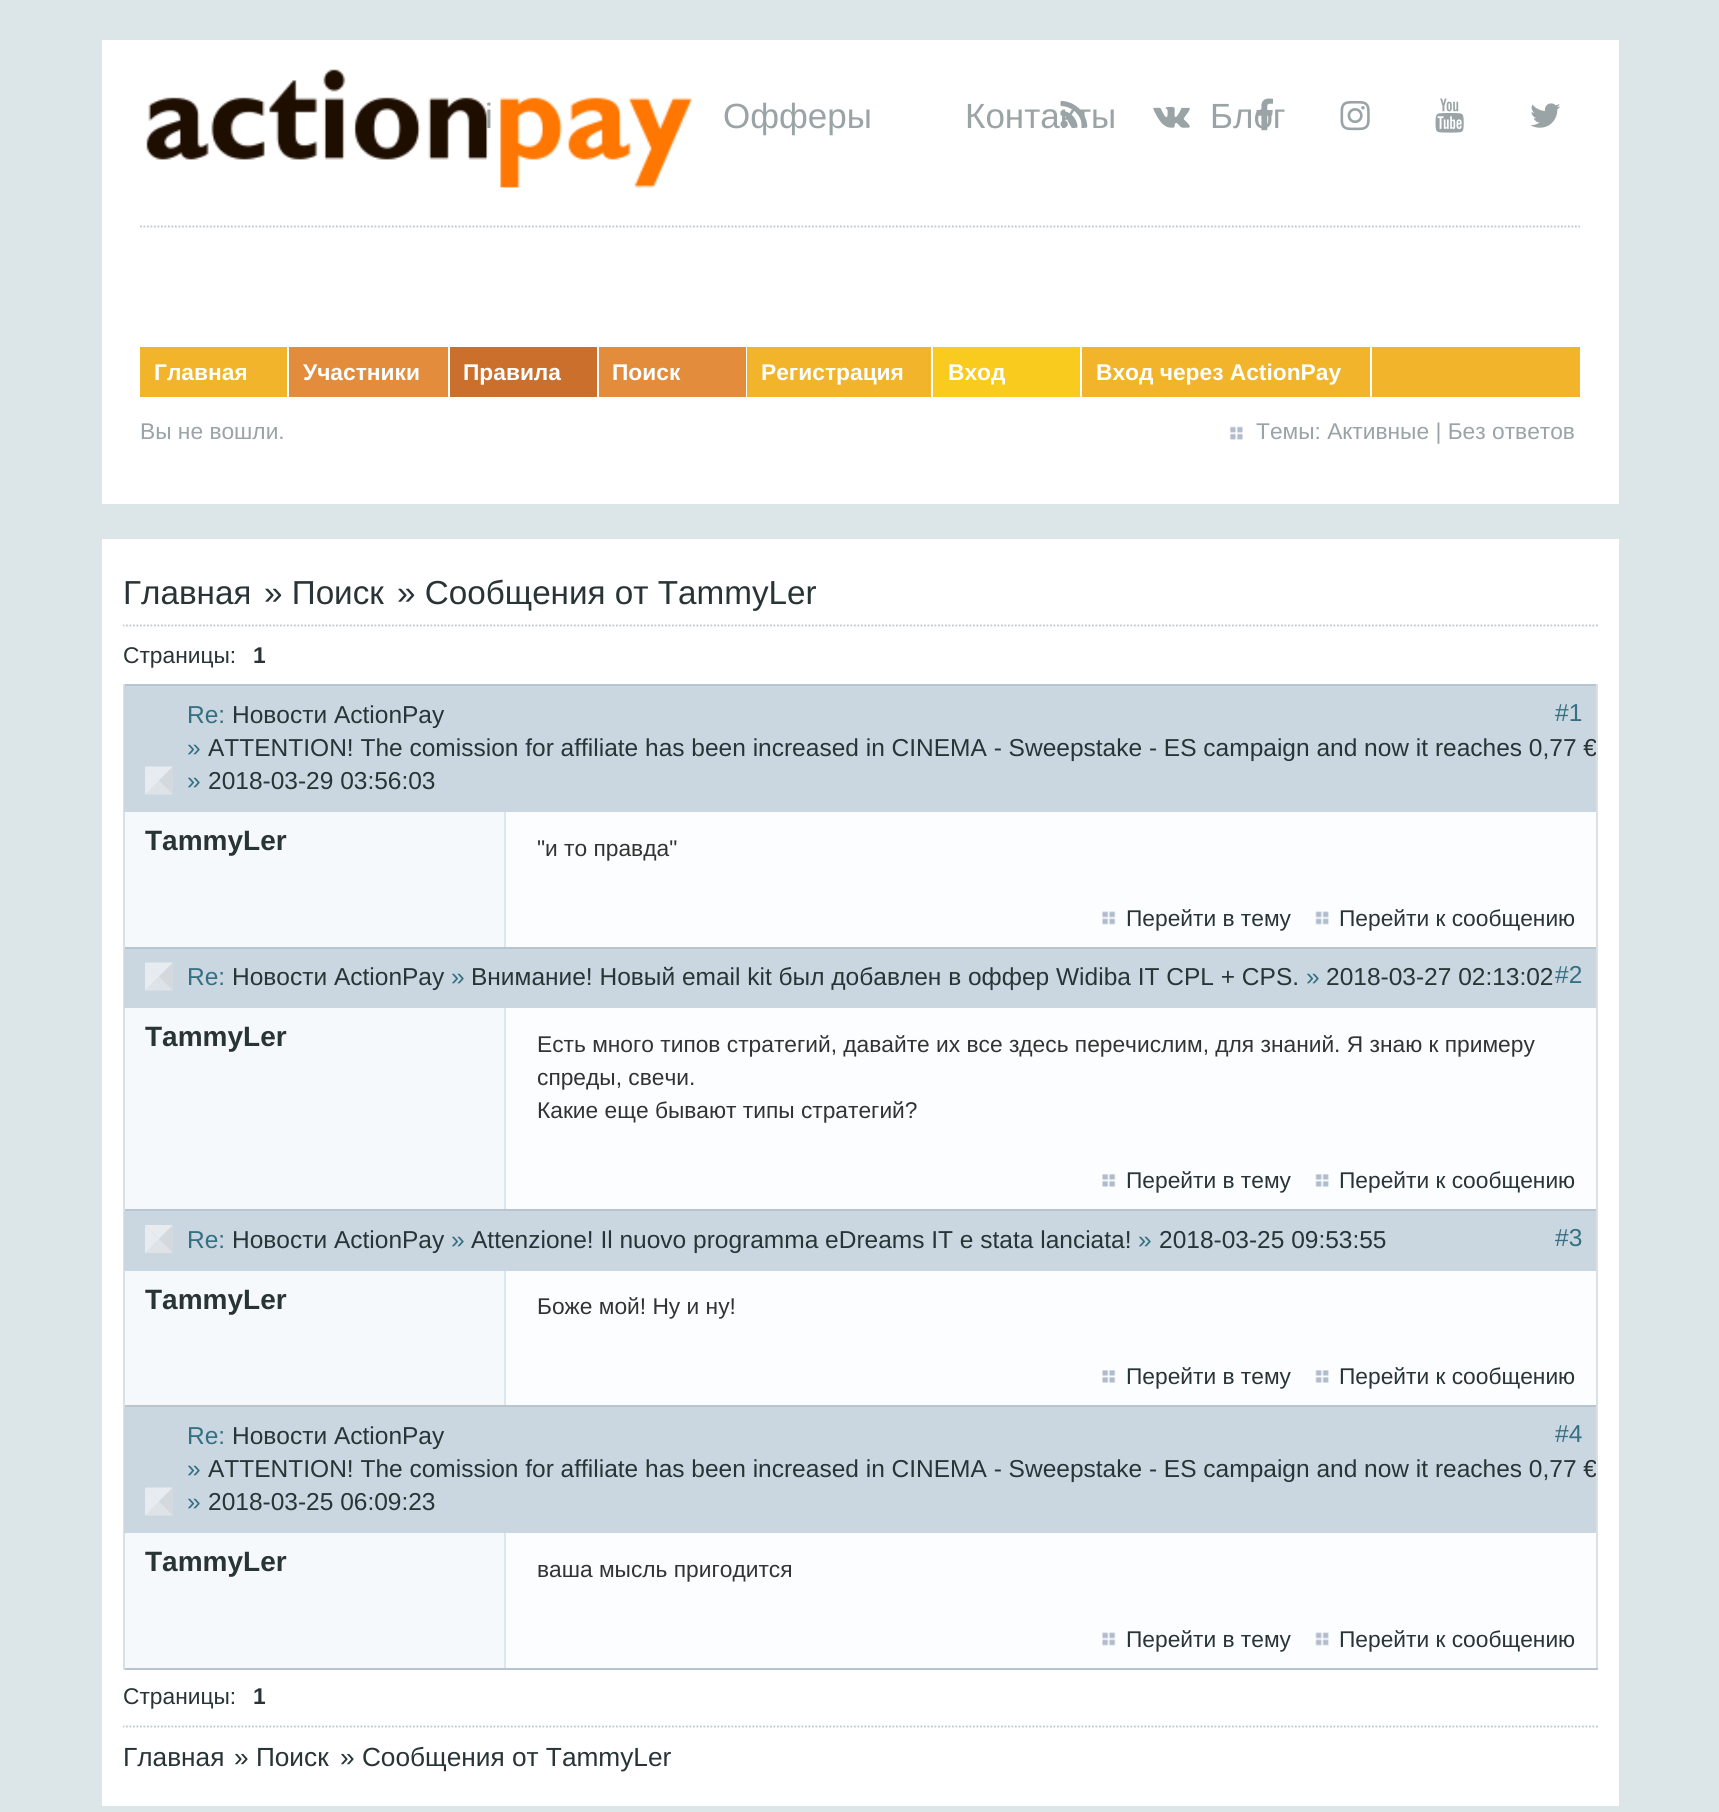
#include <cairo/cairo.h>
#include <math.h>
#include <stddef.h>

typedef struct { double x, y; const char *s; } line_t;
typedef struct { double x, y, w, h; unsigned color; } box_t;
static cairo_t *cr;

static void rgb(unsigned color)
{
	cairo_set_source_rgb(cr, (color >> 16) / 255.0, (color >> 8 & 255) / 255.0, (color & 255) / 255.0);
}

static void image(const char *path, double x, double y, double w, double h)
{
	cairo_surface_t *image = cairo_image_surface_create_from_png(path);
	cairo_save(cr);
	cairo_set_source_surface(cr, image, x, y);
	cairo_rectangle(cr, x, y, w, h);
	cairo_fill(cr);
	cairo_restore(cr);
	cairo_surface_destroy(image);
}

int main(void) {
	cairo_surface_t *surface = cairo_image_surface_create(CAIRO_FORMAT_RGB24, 1719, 1812);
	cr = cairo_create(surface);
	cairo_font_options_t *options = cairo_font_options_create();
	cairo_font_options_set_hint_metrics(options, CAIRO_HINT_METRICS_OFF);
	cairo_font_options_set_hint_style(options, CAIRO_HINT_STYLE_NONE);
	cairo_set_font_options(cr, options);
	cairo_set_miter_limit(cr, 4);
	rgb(0xdce5e7);
	cairo_paint(cr);
	rgb(0xffffff);
	cairo_rectangle(cr, 102, 40, 1517, 464);
	cairo_fill(cr);
	image("img/3.png", 1153, 106, 37, 22);
	image("img/5.png", 1340, 100, 30, 31);
	image("img/6.png", 1435, 98, 29, 35);
	image("img/7.png", 1530, 103, 31, 25);
	cairo_new_path(cr);
	cairo_move_to(cr, 140, 226.5);
	cairo_line_to(cr, 1580, 226.5);
	rgb(0xb9c5ce);
	cairo_set_line_width(cr, 1.8);
	cairo_set_dash(cr, (double[]){1.75, 1.75}, 2, 0);
	cairo_stroke(cr);
	{
		static const box_t items[] = {
			{140, 347, 1440, 50, 0xf1b42a},
			{287, 347, 2, 50, 0xffffff},
			{289, 347, 159, 50, 0xe38d3c},
			{448, 347, 2, 50, 0xffffff},
			{450, 347, 147, 50, 0xcb6f2d},
			{597, 347, 2, 50, 0xffffff},
			{599, 347, 147, 50, 0xe38d3c},
			{746, 347, 1, 50, 0xffffff},
			{931, 347, 2, 50, 0xffffff},
			{933, 347, 147, 50, 0xfacb1f},
			{1080, 347, 2, 50, 0xffffff},
			{1370, 347, 2, 50, 0xffffff},
		};
		for (size_t i = 0; i < sizeof items / sizeof *items; i++) {
			rgb(items[i].color);
			cairo_rectangle(cr, items[i].x, items[i].y, items[i].w, items[i].h);
			cairo_fill(cr);
		}
	}
	image("img/8.png", 1229, 426, 14, 14);
	cairo_rectangle(cr, 102, 539, 1517, 1267);
	cairo_fill(cr);
	cairo_save(cr);
	cairo_rectangle(cr, 123, 560, 1475, 124);
	cairo_clip(cr);
	cairo_new_path(cr);
	cairo_move_to(cr, 122.5, 625.5);
	cairo_line_to(cr, 1598, 625.5);
	rgb(0xb9c5ce);
	cairo_stroke(cr);
	cairo_restore(cr);
	{
		static const box_t items[] = {
			{125, 812, 379, 135, 0xf6f9fc},
			{123, 684, 1475, 2, 0xb9c5ce},
			{1596, 684, 2, 265, 0xd9e1e7},
			{123, 684, 2, 265, 0xd9e1e7},
			{124, 686, 1472, 126, 0xcad7e1},
			{506, 812, 1090, 135, 0xfcfdfe},
			{504, 812, 2, 135, 0xdfe6ee},
		};
		for (size_t i = 0; i < sizeof items / sizeof *items; i++) {
			rgb(items[i].color);
			cairo_rectangle(cr, items[i].x, items[i].y, items[i].w, items[i].h);
			cairo_fill(cr);
		}
	}
	rgb(0xe8ecf1);
	cairo_new_path(cr);
	cairo_move_to(cr, 145, 766.5);
	cairo_line_to(cr, 173, 766.5);
	cairo_line_to(cr, 159, 780.5);
	cairo_close_path(cr);
	cairo_fill(cr);
	rgb(0xd4d9dd);
	cairo_new_path(cr);
	cairo_move_to(cr, 173, 766.5);
	cairo_line_to(cr, 173, 794.5);
	cairo_line_to(cr, 159, 780.5);
	cairo_close_path(cr);
	cairo_fill(cr);
	rgb(0xdfe3e8);
	cairo_new_path(cr);
	cairo_move_to(cr, 173, 794.5);
	cairo_line_to(cr, 145, 794.5);
	cairo_line_to(cr, 159, 780.5);
	cairo_close_path(cr);
	cairo_fill(cr);
	rgb(0xe8ecf1);
	cairo_new_path(cr);
	cairo_move_to(cr, 145, 794.5);
	cairo_line_to(cr, 145, 766.5);
	cairo_line_to(cr, 159, 780.5);
	cairo_close_path(cr);
	cairo_fill(cr);
	image("img/9.png", 1102, 911, 14, 14);
	image("img/10.png", 1315, 911, 14, 14);
	{
		static const box_t items[] = {
			{125, 1008, 379, 201, 0xf6f9fc},
			{123, 947, 1475, 2, 0xb9c5ce},
			{1596, 947, 2, 264, 0xd9e1e7},
			{123, 947, 2, 264, 0xd9e1e7},
			{124, 949, 1472, 59, 0xcad7e1},
			{506, 1008, 1090, 201, 0xfcfdfe},
			{504, 1008, 2, 201, 0xdfe6ee},
		};
		for (size_t i = 0; i < sizeof items / sizeof *items; i++) {
			rgb(items[i].color);
			cairo_rectangle(cr, items[i].x, items[i].y, items[i].w, items[i].h);
			cairo_fill(cr);
		}
	}
	rgb(0xe8ecf1);
	cairo_new_path(cr);
	cairo_move_to(cr, 145, 962.5);
	cairo_line_to(cr, 173, 962.5);
	cairo_line_to(cr, 159, 976.5);
	cairo_close_path(cr);
	cairo_fill(cr);
	rgb(0xd4d9dd);
	cairo_new_path(cr);
	cairo_move_to(cr, 173, 962.5);
	cairo_line_to(cr, 173, 990.5);
	cairo_line_to(cr, 159, 976.5);
	cairo_close_path(cr);
	cairo_fill(cr);
	rgb(0xdfe3e8);
	cairo_new_path(cr);
	cairo_move_to(cr, 173, 990.5);
	cairo_line_to(cr, 145, 990.5);
	cairo_line_to(cr, 159, 976.5);
	cairo_close_path(cr);
	cairo_fill(cr);
	rgb(0xe8ecf1);
	cairo_new_path(cr);
	cairo_move_to(cr, 145, 990.5);
	cairo_line_to(cr, 145, 962.5);
	cairo_line_to(cr, 159, 976.5);
	cairo_close_path(cr);
	cairo_fill(cr);
	image("img/11.png", 1102, 1174, 14, 13);
	image("img/12.png", 1315, 1174, 14, 13);
	{
		static const box_t items[] = {
			{125, 1271, 379, 134, 0xf6f9fc},
			{123, 1209, 1475, 2, 0xb9c5ce},
			{1596, 1209, 2, 198, 0xd9e1e7},
			{123, 1209, 2, 198, 0xd9e1e7},
			{124, 1211, 1472, 60, 0xcad7e1},
			{506, 1271, 1090, 134, 0xfcfdfe},
			{504, 1271, 2, 134, 0xdfe6ee},
		};
		for (size_t i = 0; i < sizeof items / sizeof *items; i++) {
			rgb(items[i].color);
			cairo_rectangle(cr, items[i].x, items[i].y, items[i].w, items[i].h);
			cairo_fill(cr);
		}
	}
	rgb(0xe8ecf1);
	cairo_new_path(cr);
	cairo_move_to(cr, 145, 1225);
	cairo_line_to(cr, 173, 1225);
	cairo_line_to(cr, 159, 1239);
	cairo_close_path(cr);
	cairo_fill(cr);
	rgb(0xd4d9dd);
	cairo_new_path(cr);
	cairo_move_to(cr, 173, 1225);
	cairo_line_to(cr, 173, 1253);
	cairo_line_to(cr, 159, 1239);
	cairo_close_path(cr);
	cairo_fill(cr);
	rgb(0xdfe3e8);
	cairo_new_path(cr);
	cairo_move_to(cr, 173, 1253);
	cairo_line_to(cr, 145, 1253);
	cairo_line_to(cr, 159, 1239);
	cairo_close_path(cr);
	cairo_fill(cr);
	rgb(0xe8ecf1);
	cairo_new_path(cr);
	cairo_move_to(cr, 145, 1253);
	cairo_line_to(cr, 145, 1225);
	cairo_line_to(cr, 159, 1239);
	cairo_close_path(cr);
	cairo_fill(cr);
	image("img/11.png", 1102, 1370, 14, 13);
	image("img/12.png", 1315, 1370, 14, 13);
	{
		static const box_t items[] = {
			{125, 1533, 379, 135, 0xf6f9fc},
			{123, 1405, 1475, 2, 0xb9c5ce},
			{1596, 1405, 2, 265, 0xd9e1e7},
			{123, 1668, 1475, 2, 0xb9c5ce},
			{123, 1405, 2, 265, 0xd9e1e7},
			{124, 1407, 1472, 126, 0xcad7e1},
			{506, 1533, 1090, 135, 0xfcfdfe},
			{504, 1533, 2, 135, 0xdfe6ee},
		};
		for (size_t i = 0; i < sizeof items / sizeof *items; i++) {
			rgb(items[i].color);
			cairo_rectangle(cr, items[i].x, items[i].y, items[i].w, items[i].h);
			cairo_fill(cr);
		}
	}
	rgb(0xe8ecf1);
	cairo_new_path(cr);
	cairo_move_to(cr, 145, 1487.5);
	cairo_line_to(cr, 173, 1487.5);
	cairo_line_to(cr, 159, 1501.5);
	cairo_close_path(cr);
	cairo_fill(cr);
	rgb(0xd4d9dd);
	cairo_new_path(cr);
	cairo_move_to(cr, 173, 1487.5);
	cairo_line_to(cr, 173, 1515.5);
	cairo_line_to(cr, 159, 1501.5);
	cairo_close_path(cr);
	cairo_fill(cr);
	rgb(0xdfe3e8);
	cairo_new_path(cr);
	cairo_move_to(cr, 173, 1515.5);
	cairo_line_to(cr, 145, 1515.5);
	cairo_line_to(cr, 159, 1501.5);
	cairo_close_path(cr);
	cairo_fill(cr);
	rgb(0xe8ecf1);
	cairo_new_path(cr);
	cairo_move_to(cr, 145, 1515.5);
	cairo_line_to(cr, 145, 1487.5);
	cairo_line_to(cr, 159, 1501.5);
	cairo_close_path(cr);
	cairo_fill(cr);
	image("img/9.png", 1102, 1632, 14, 14);
	image("img/10.png", 1315, 1632, 14, 14);
	cairo_save(cr);
	cairo_rectangle(cr, 123, 1668, 1475, 117);
	cairo_clip(cr);
	cairo_new_path(cr);
	cairo_move_to(cr, 122.5, 1726.5);
	cairo_line_to(cr, 1598, 1726.5);
	rgb(0xb9c5ce);
	cairo_stroke(cr);
	cairo_restore(cr);
	cairo_select_font_face(cr, "Liberation Sans", CAIRO_FONT_SLANT_NORMAL, CAIRO_FONT_WEIGHT_NORMAL);
	cairo_set_font_size(cr, 35);
	rgb(0x9aa3a5);
	cairo_move_to(cr, 485, 128);
	cairo_show_text(cr, "i");
	image("img/1.png", 146, 69, 546, 119);
	{
		static const line_t items[] = {
			{723, 128, "Офферы"},
			{965, 128, "Контакты"},
			{1210, 128, "Блог"},
		};
		for (size_t i = 0; i < sizeof items / sizeof *items; i++) {
			cairo_move_to(cr, items[i].x, items[i].y);
			cairo_show_text(cr, items[i].s);
		}
	}
	image("img/2.png", 1060, 101, 28, 27);
	image("img/4.png", 1256, 98, 17, 33);
	cairo_select_font_face(cr, "Liberation Sans", CAIRO_FONT_SLANT_NORMAL, CAIRO_FONT_WEIGHT_BOLD);
	cairo_set_font_size(cr, 22.75);
	rgb(0xffffff);
	{
		static const line_t items[] = {
			{154, 380, "Главная"},
			{303, 380, "Участники"},
			{463, 380, "Правила"},
			{612, 380, "Поиск"},
			{761, 380, "Регистрация"},
			{948, 380, "Вход"},
			{1096, 380, "Вход через ActionPay"},
		};
		for (size_t i = 0; i < sizeof items / sizeof *items; i++) {
			cairo_move_to(cr, items[i].x, items[i].y);
			cairo_show_text(cr, items[i].s);
		}
	}
	cairo_select_font_face(cr, "Liberation Sans", CAIRO_FONT_SLANT_NORMAL, CAIRO_FONT_WEIGHT_NORMAL);
	rgb(0x9aa3a5);
	cairo_move_to(cr, 140, 439);
	cairo_show_text(cr, "Вы не вошли.");
	cairo_move_to(cr, 1256, 439);
	cairo_show_text(cr, "Темы: Активные | Без ответов");
	cairo_set_font_size(cr, 33.25);
	rgb(0x293437);
	{
		static const line_t items[] = {
			{123, 604, "Главная"},
			{264, 604, "» Поиск"},
			{397, 604, "» Сообщения от TammyLer"},
		};
		for (size_t i = 0; i < sizeof items / sizeof *items; i++) {
			cairo_move_to(cr, items[i].x, items[i].y);
			cairo_show_text(cr, items[i].s);
		}
	}
	cairo_set_font_size(cr, 22.75);
	cairo_move_to(cr, 123, 663);
	cairo_show_text(cr, "Страницы:");
	cairo_select_font_face(cr, "Liberation Sans", CAIRO_FONT_SLANT_NORMAL, CAIRO_FONT_WEIGHT_BOLD);
	cairo_move_to(cr, 253, 663);
	cairo_show_text(cr, "1");
	cairo_select_font_face(cr, "Liberation Sans", CAIRO_FONT_SLANT_NORMAL, CAIRO_FONT_WEIGHT_NORMAL);
	cairo_set_font_size(cr, 24.5);
	rgb(0x357082);
	cairo_move_to(cr, 187, 723);
	cairo_show_text(cr, "Re:");
	rgb(0x293437);
	cairo_move_to(cr, 232, 723);
	cairo_show_text(cr, "Новости ActionPay");
	rgb(0x357082);
	cairo_move_to(cr, 1555, 721);
	cairo_show_text(cr, "#1");
	cairo_move_to(cr, 187, 756);
	cairo_show_text(cr, "»");
	cairo_save(cr);
	cairo_rectangle(cr, 124, 686, 1472, 261);
	cairo_clip(cr);
	rgb(0x293437);
	cairo_move_to(cr, 208, 756);
	cairo_show_text(cr, "ATTENTION! The comission for affiliate has been increased in CINEMA - Sweepstake - ES campaign and now it reaches 0,77 €");
	cairo_restore(cr);
	cairo_move_to(cr, 187, 789);
	cairo_show_text(cr, "»");
	rgb(0x293437);
	cairo_move_to(cr, 208, 789);
	cairo_show_text(cr, "2018-03-29 03:56:03");
	cairo_select_font_face(cr, "Liberation Sans", CAIRO_FONT_SLANT_NORMAL, CAIRO_FONT_WEIGHT_BOLD);
	cairo_set_font_size(cr, 28);
	cairo_move_to(cr, 145, 850);
	cairo_show_text(cr, "TammyLer");
	cairo_select_font_face(cr, "Liberation Sans", CAIRO_FONT_SLANT_NORMAL, CAIRO_FONT_WEIGHT_NORMAL);
	cairo_set_font_size(cr, 22.75);
	rgb(0x333333);
	cairo_move_to(cr, 537, 856);
	cairo_show_text(cr, "\"и то правда\"");
	rgb(0x293437);
	cairo_move_to(cr, 1126, 926);
	cairo_show_text(cr, "Перейти в тему");
	cairo_move_to(cr, 1339, 926);
	cairo_show_text(cr, "Перейти к сообщению");
	cairo_set_font_size(cr, 24.5);
	rgb(0x357082);
	cairo_move_to(cr, 187, 985);
	cairo_show_text(cr, "Re:");
	rgb(0x293437);
	cairo_move_to(cr, 232, 985);
	cairo_show_text(cr, "Новости ActionPay");
	rgb(0x357082);
	cairo_move_to(cr, 451, 985);
	cairo_show_text(cr, "»");
	rgb(0x293437);
	cairo_move_to(cr, 471, 985);
	cairo_show_text(cr, "Внимание! Новый email kit был добавлен в оффер Widiba IT CPL + CPS.");
	rgb(0x357082);
	cairo_move_to(cr, 1306, 985);
	cairo_show_text(cr, "»");
	rgb(0x293437);
	cairo_move_to(cr, 1326, 985);
	cairo_show_text(cr, "2018-03-27 02:13:02");
	rgb(0x357082);
	cairo_move_to(cr, 1555, 983);
	cairo_show_text(cr, "#2");
	cairo_select_font_face(cr, "Liberation Sans", CAIRO_FONT_SLANT_NORMAL, CAIRO_FONT_WEIGHT_BOLD);
	cairo_set_font_size(cr, 28);
	rgb(0x293437);
	cairo_move_to(cr, 145, 1046);
	cairo_show_text(cr, "TammyLer");
	cairo_select_font_face(cr, "Liberation Sans", CAIRO_FONT_SLANT_NORMAL, CAIRO_FONT_WEIGHT_NORMAL);
	cairo_set_font_size(cr, 22.75);
	rgb(0x333333);
	{
		static const line_t items[] = {
			{537, 1052, "Есть много типов стратегий, давайте их все здесь перечислим, для знаний. Я знаю к примеру"},
			{537, 1085, "спреды, свечи."},
			{537, 1118, "Какие еще бывают типы стратегий?"},
		};
		for (size_t i = 0; i < sizeof items / sizeof *items; i++) {
			cairo_move_to(cr, items[i].x, items[i].y);
			cairo_show_text(cr, items[i].s);
		}
	}
	rgb(0x293437);
	cairo_move_to(cr, 1126, 1188);
	cairo_show_text(cr, "Перейти в тему");
	cairo_move_to(cr, 1339, 1188);
	cairo_show_text(cr, "Перейти к сообщению");
	cairo_set_font_size(cr, 24.5);
	rgb(0x357082);
	cairo_move_to(cr, 187, 1248);
	cairo_show_text(cr, "Re:");
	rgb(0x293437);
	cairo_move_to(cr, 232, 1248);
	cairo_show_text(cr, "Новости ActionPay");
	rgb(0x357082);
	cairo_move_to(cr, 451, 1248);
	cairo_show_text(cr, "»");
	rgb(0x293437);
	cairo_move_to(cr, 471, 1248);
	cairo_show_text(cr, "Attenzione! Il nuovo programma eDreams IT e stata lanciata!");
	rgb(0x357082);
	cairo_move_to(cr, 1138, 1248);
	cairo_show_text(cr, "»");
	rgb(0x293437);
	cairo_move_to(cr, 1159, 1248);
	cairo_show_text(cr, "2018-03-25 09:53:55");
	rgb(0x357082);
	cairo_move_to(cr, 1555, 1246);
	cairo_show_text(cr, "#3");
	cairo_select_font_face(cr, "Liberation Sans", CAIRO_FONT_SLANT_NORMAL, CAIRO_FONT_WEIGHT_BOLD);
	cairo_set_font_size(cr, 28);
	rgb(0x293437);
	cairo_move_to(cr, 145, 1309);
	cairo_show_text(cr, "TammyLer");
	cairo_select_font_face(cr, "Liberation Sans", CAIRO_FONT_SLANT_NORMAL, CAIRO_FONT_WEIGHT_NORMAL);
	cairo_set_font_size(cr, 22.75);
	rgb(0x333333);
	cairo_move_to(cr, 537, 1314);
	cairo_show_text(cr, "Боже мой! Ну и ну!");
	rgb(0x293437);
	cairo_move_to(cr, 1126, 1384);
	cairo_show_text(cr, "Перейти в тему");
	cairo_move_to(cr, 1339, 1384);
	cairo_show_text(cr, "Перейти к сообщению");
	cairo_set_font_size(cr, 24.5);
	rgb(0x357082);
	cairo_move_to(cr, 187, 1444);
	cairo_show_text(cr, "Re:");
	rgb(0x293437);
	cairo_move_to(cr, 232, 1444);
	cairo_show_text(cr, "Новости ActionPay");
	rgb(0x357082);
	cairo_move_to(cr, 1555, 1442);
	cairo_show_text(cr, "#4");
	cairo_move_to(cr, 187, 1477);
	cairo_show_text(cr, "»");
	cairo_save(cr);
	cairo_rectangle(cr, 124, 1407, 1472, 261);
	cairo_clip(cr);
	rgb(0x293437);
	cairo_move_to(cr, 208, 1477);
	cairo_show_text(cr, "ATTENTION! The comission for affiliate has been increased in CINEMA - Sweepstake - ES campaign and now it reaches 0,77 €");
	cairo_restore(cr);
	cairo_move_to(cr, 187, 1510);
	cairo_show_text(cr, "»");
	rgb(0x293437);
	cairo_move_to(cr, 208, 1510);
	cairo_show_text(cr, "2018-03-25 06:09:23");
	cairo_select_font_face(cr, "Liberation Sans", CAIRO_FONT_SLANT_NORMAL, CAIRO_FONT_WEIGHT_BOLD);
	cairo_set_font_size(cr, 28);
	cairo_move_to(cr, 145, 1571);
	cairo_show_text(cr, "TammyLer");
	cairo_select_font_face(cr, "Liberation Sans", CAIRO_FONT_SLANT_NORMAL, CAIRO_FONT_WEIGHT_NORMAL);
	cairo_set_font_size(cr, 22.75);
	rgb(0x333333);
	cairo_move_to(cr, 537, 1577);
	cairo_show_text(cr, "ваша мысль пригодится");
	rgb(0x293437);
	{
		static const line_t items[] = {
			{1126, 1647, "Перейти в тему"},
			{1339, 1647, "Перейти к сообщению"},
			{123, 1704, "Страницы:"},
		};
		for (size_t i = 0; i < sizeof items / sizeof *items; i++) {
			cairo_move_to(cr, items[i].x, items[i].y);
			cairo_show_text(cr, items[i].s);
		}
	}
	cairo_select_font_face(cr, "Liberation Sans", CAIRO_FONT_SLANT_NORMAL, CAIRO_FONT_WEIGHT_BOLD);
	cairo_move_to(cr, 253, 1704);
	cairo_show_text(cr, "1");
	cairo_select_font_face(cr, "Liberation Sans", CAIRO_FONT_SLANT_NORMAL, CAIRO_FONT_WEIGHT_NORMAL);
	cairo_set_font_size(cr, 26.25);
	{
		static const line_t items[] = {
			{123, 1766, "Главная"},
			{234, 1766, "» Поиск"},
			{340, 1766, "» Сообщения от TammyLer"},
		};
		for (size_t i = 0; i < sizeof items / sizeof *items; i++) {
			cairo_move_to(cr, items[i].x, items[i].y);
			cairo_show_text(cr, items[i].s);
		}
	}
	cairo_surface_write_to_png(surface, "page.png");
	cairo_font_options_destroy(options);
	cairo_destroy(cr);
	cairo_surface_destroy(surface);
	return 0;
}
